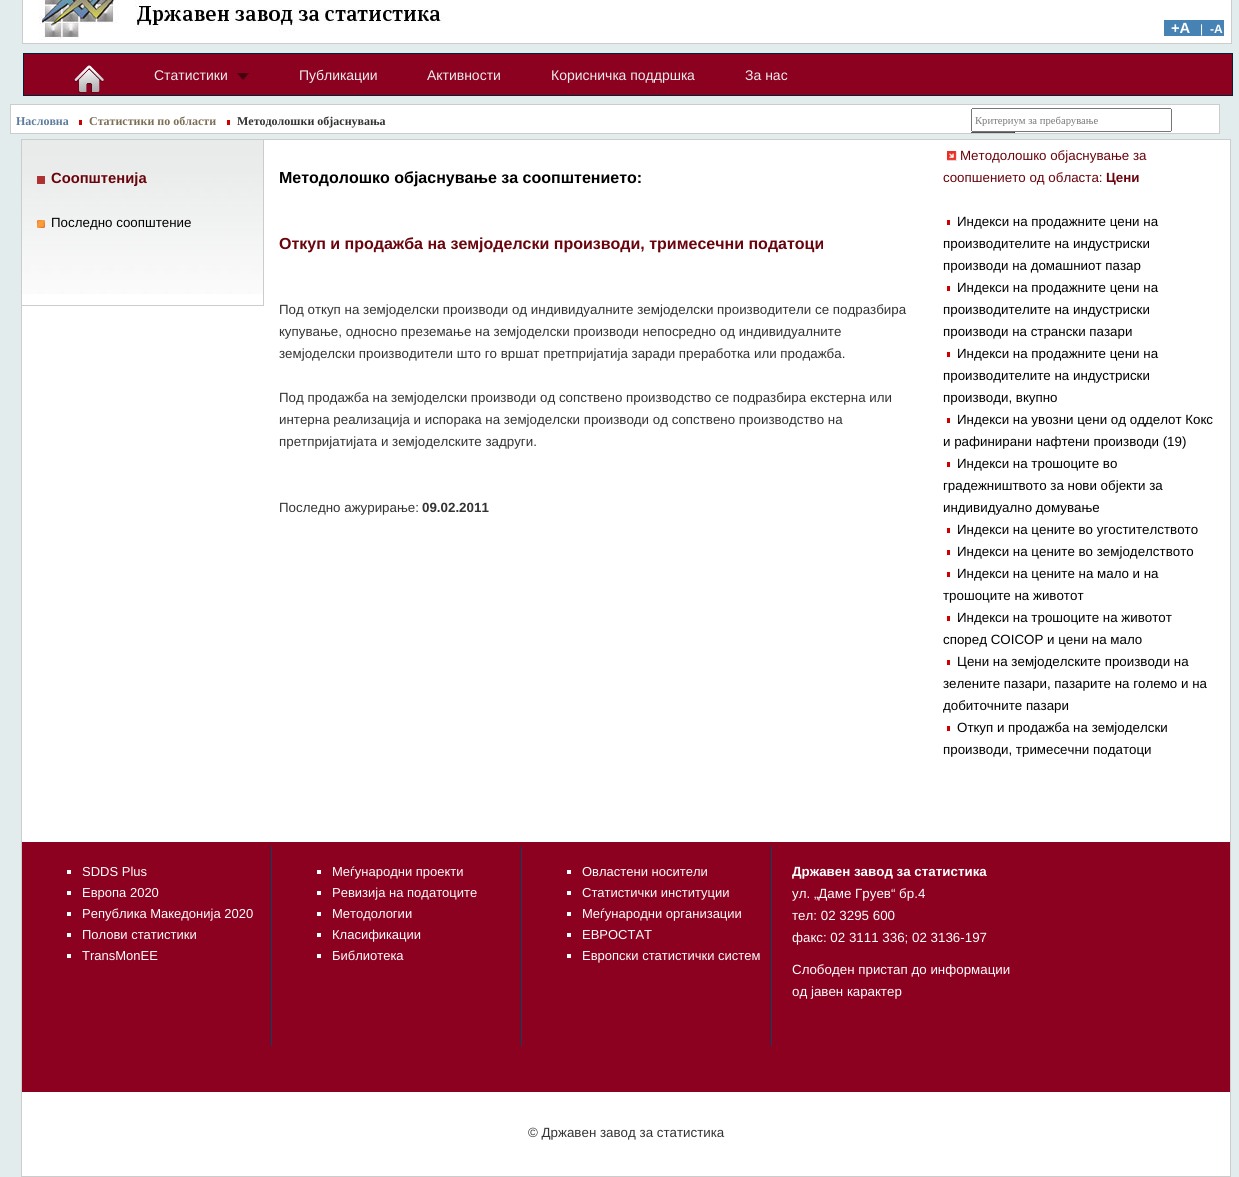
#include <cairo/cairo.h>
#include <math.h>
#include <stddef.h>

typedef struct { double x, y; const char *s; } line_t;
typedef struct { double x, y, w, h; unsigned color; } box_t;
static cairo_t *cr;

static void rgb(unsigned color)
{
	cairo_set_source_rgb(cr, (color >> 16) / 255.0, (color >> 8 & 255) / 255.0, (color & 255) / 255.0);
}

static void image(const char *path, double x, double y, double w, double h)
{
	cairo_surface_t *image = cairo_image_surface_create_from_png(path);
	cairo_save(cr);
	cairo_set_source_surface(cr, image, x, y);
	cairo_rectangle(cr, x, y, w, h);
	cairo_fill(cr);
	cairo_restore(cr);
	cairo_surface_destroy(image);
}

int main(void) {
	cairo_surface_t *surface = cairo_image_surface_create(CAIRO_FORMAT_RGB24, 1239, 1177);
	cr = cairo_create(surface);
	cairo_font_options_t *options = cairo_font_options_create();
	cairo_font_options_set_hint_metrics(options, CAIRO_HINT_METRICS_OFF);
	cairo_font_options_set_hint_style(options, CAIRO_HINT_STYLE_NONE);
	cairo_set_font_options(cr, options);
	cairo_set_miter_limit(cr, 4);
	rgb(0xe3ecec);
	cairo_paint(cr);
	rgb(0xffffff);
	cairo_rectangle(cr, 23, 0, 1208, 43);
	cairo_fill(cr);
	image("img/1.png", 39, 0, 406, 40);
	cairo_rectangle(cr, 22.5, -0.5, 1209, 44);
	rgb(0xcccccc);
	cairo_set_line_width(cr, 1);
	cairo_stroke(cr);
	rgb(0x4682b4);
	cairo_rectangle(cr, 1164, 20, 60, 16);
	cairo_fill(cr);
	rgb(0x8c0020);
	cairo_rectangle(cr, 23.5, 53.5, 1209, 42);
	cairo_fill_preserve(cr);
	rgb(0x002232);
	cairo_stroke(cr);
	image("img/2.png", 74, 65, 30, 28);
	image("img/3.png", 237, 73, 12, 7);
	rgb(0xffffff);
	cairo_rectangle(cr, 10.5, 104.5, 1209, 29);
	cairo_fill_preserve(cr);
	rgb(0xcccccc);
	cairo_stroke(cr);
	image("img/4.png", 971, 108, 201, 25);
	rgb(0xcc0000);
	cairo_rectangle(cr, 79, 120, 3, 5);
	cairo_fill(cr);
	cairo_rectangle(cr, 227, 120, 3, 5);
	cairo_fill(cr);
	rgb(0xffffff);
	cairo_rectangle(cr, 21.5, 139.5, 1209, 1037);
	cairo_fill_preserve(cr);
	rgb(0xcccccc);
	cairo_stroke(cr);
	image("img/5.png", 22, 140, 241, 154);
	cairo_rectangle(cr, 263, 140, 1, 166);
	cairo_fill(cr);
	cairo_rectangle(cr, 22, 305, 242, 1);
	cairo_fill(cr);
	image("img/6.png", 37, 176, 8, 8);
	image("img/7.png", 37, 220, 8, 8);
	image("img/8.png", 947, 151, 10, 10);
	{
		static const box_t items[] = {
			{947, 220, 3, 5, 0xcc0000},
			{947, 286, 3, 5, 0xcc0000},
			{947, 352, 3, 5, 0xcc0000},
			{947, 418, 3, 5, 0xcc0000},
			{947, 462, 3, 5, 0xcc0000},
			{947, 528, 3, 5, 0xcc0000},
			{947, 550, 3, 5, 0xcc0000},
			{947, 572, 3, 5, 0xcc0000},
			{947, 616, 3, 5, 0xcc0000},
			{947, 660, 3, 5, 0xcc0000},
			{947, 726, 3, 5, 0xcc0000},
			{22, 842, 1208, 250, 0x8c0020},
			{271, 846, 1, 200, 0x014464},
			{67, 870, 4, 4, 0xffffff},
			{67, 891, 4, 4, 0xffffff},
			{67, 912, 4, 4, 0xffffff},
			{67, 933, 4, 4, 0xffffff},
			{67, 954, 4, 4, 0xffffff},
			{521, 846, 1, 200, 0x014464},
			{317, 870, 4, 4, 0xffffff},
			{317, 891, 4, 4, 0xffffff},
			{317, 912, 4, 4, 0xffffff},
			{317, 933, 4, 4, 0xffffff},
			{317, 954, 4, 4, 0xffffff},
			{771, 846, 1, 200, 0x014464},
			{567, 870, 4, 4, 0xffffff},
			{567, 891, 4, 4, 0xffffff},
			{567, 912, 4, 4, 0xffffff},
			{567, 933, 4, 4, 0xffffff},
			{567, 954, 4, 4, 0xffffff},
		};
		for (size_t i = 0; i < sizeof items / sizeof *items; i++) {
			rgb(items[i].color);
			cairo_rectangle(cr, items[i].x, items[i].y, items[i].w, items[i].h);
			cairo_fill(cr);
		}
	}
	cairo_select_font_face(cr, "Liberation Sans", CAIRO_FONT_SLANT_NORMAL, CAIRO_FONT_WEIGHT_BOLD);
	cairo_set_font_size(cr, 14.75);
	cairo_move_to(cr, 1171, 33);
	cairo_show_text(cr, "+A");
	cairo_select_font_face(cr, "Liberation Sans", CAIRO_FONT_SLANT_NORMAL, CAIRO_FONT_WEIGHT_NORMAL);
	cairo_set_font_size(cr, 12);
	cairo_move_to(cr, 1200, 33);
	cairo_show_text(cr, "|");
	cairo_select_font_face(cr, "Liberation Sans", CAIRO_FONT_SLANT_NORMAL, CAIRO_FONT_WEIGHT_BOLD);
	cairo_move_to(cr, 1210, 33);
	cairo_show_text(cr, "-A");
	cairo_select_font_face(cr, "Liberation Sans", CAIRO_FONT_SLANT_NORMAL, CAIRO_FONT_WEIGHT_NORMAL);
	cairo_set_font_size(cr, 14);
	rgb(0xeeeeee);
	{
		static const line_t items[] = {
			{154, 80, "Статистики"},
			{299, 80, "Публикации"},
			{427, 80, "Активности"},
			{551, 80, "Корисничка поддршка"},
			{745, 80, "За нас"},
		};
		for (size_t i = 0; i < sizeof items / sizeof *items; i++) {
			cairo_move_to(cr, items[i].x, items[i].y);
			cairo_show_text(cr, items[i].s);
		}
	}
	cairo_select_font_face(cr, "Liberation Serif", CAIRO_FONT_SLANT_NORMAL, CAIRO_FONT_WEIGHT_BOLD);
	cairo_set_font_size(cr, 12);
	rgb(0x5d7b9d);
	cairo_move_to(cr, 16, 125);
	cairo_show_text(cr, "Насловна");
	rgb(0x7c6f57);
	cairo_move_to(cr, 89, 125);
	cairo_show_text(cr, "Статистики по области");
	rgb(0x333333);
	cairo_move_to(cr, 237, 125);
	cairo_show_text(cr, "Методолошки објаснувања");
	cairo_select_font_face(cr, "Liberation Sans", CAIRO_FONT_SLANT_NORMAL, CAIRO_FONT_WEIGHT_BOLD);
	cairo_set_font_size(cr, 14.75);
	rgb(0x69030c);
	cairo_move_to(cr, 51, 183);
	cairo_show_text(cr, "Соопштенија");
	cairo_select_font_face(cr, "Liberation Sans", CAIRO_FONT_SLANT_NORMAL, CAIRO_FONT_WEIGHT_NORMAL);
	cairo_set_font_size(cr, 13.35);
	rgb(0x000000);
	cairo_move_to(cr, 51, 227);
	cairo_show_text(cr, "Последно соопштение");
	cairo_select_font_face(cr, "Liberation Sans", CAIRO_FONT_SLANT_NORMAL, CAIRO_FONT_WEIGHT_BOLD);
	cairo_set_font_size(cr, 16);
	cairo_move_to(cr, 279, 183);
	cairo_show_text(cr, "Методолошко објаснување за соопштението:");
	rgb(0x69030c);
	cairo_move_to(cr, 279, 249);
	cairo_show_text(cr, "Откуп и продажба на земјоделски производи, тримесечни податоци");
	cairo_select_font_face(cr, "Liberation Sans", CAIRO_FONT_SLANT_NORMAL, CAIRO_FONT_WEIGHT_NORMAL);
	cairo_set_font_size(cr, 13.35);
	rgb(0x333333);
	{
		static const line_t items[] = {
			{279, 314, "Под откуп на земјоделски производи од индивидуалните земјоделски производители се подразбира"},
			{279, 336, "купување, односно преземање на земјоделски производи непосредно од индивидуалните"},
			{279, 358, "земјоделски производители што го вршат претпријатија заради преработка или продажба."},
			{279, 402, "Под продажба на земјоделски производи од сопствено производство се подразбира екстерна или"},
			{279, 424, "интерна реализација и испорака на земјоделски производи од сопствено производство на"},
			{279, 446, "претпријатијата и земјоделските задруги."},
			{279, 512, "Последно ажурирање:"},
		};
		for (size_t i = 0; i < sizeof items / sizeof *items; i++) {
			cairo_move_to(cr, items[i].x, items[i].y);
			cairo_show_text(cr, items[i].s);
		}
	}
	cairo_select_font_face(cr, "Liberation Sans", CAIRO_FONT_SLANT_NORMAL, CAIRO_FONT_WEIGHT_BOLD);
	cairo_move_to(cr, 422, 512);
	cairo_show_text(cr, "09.02.2011");
	cairo_select_font_face(cr, "Liberation Sans", CAIRO_FONT_SLANT_NORMAL, CAIRO_FONT_WEIGHT_NORMAL);
	rgb(0x69030c);
	cairo_move_to(cr, 960, 160);
	cairo_show_text(cr, "Методолошко објаснување за");
	cairo_move_to(cr, 943, 182);
	cairo_show_text(cr, "соопшението од областа:");
	cairo_select_font_face(cr, "Liberation Sans", CAIRO_FONT_SLANT_NORMAL, CAIRO_FONT_WEIGHT_BOLD);
	cairo_move_to(cr, 1106, 182);
	cairo_show_text(cr, "Цени");
	cairo_select_font_face(cr, "Liberation Sans", CAIRO_FONT_SLANT_NORMAL, CAIRO_FONT_WEIGHT_NORMAL);
	rgb(0x000000);
	{
		static const line_t items[] = {
			{957, 226, "Индекси на продажните цени на"},
			{943, 248, "производителите на индустриски"},
			{943, 270, "производи на домашниот пазар"},
			{957, 292, "Индекси на продажните цени на"},
			{943, 314, "производителите на индустриски"},
			{943, 336, "производи на странски пазари"},
			{957, 358, "Индекси на продажните цени на"},
			{943, 380, "производителите на индустриски"},
			{943, 402, "производи, вкупно"},
			{957, 424, "Индекси на увозни цени од одделот Кокс"},
			{943, 446, "и рафинирани нафтени производи (19)"},
			{957, 468, "Индекси на трошоците во"},
			{943, 490, "градежништвото за нови објекти за"},
			{943, 512, "индивидуално домување"},
			{957, 534, "Индекси на цените во угостителството"},
			{957, 556, "Индекси на цените во земјоделството"},
			{957, 578, "Индекси на цените на мало и на"},
			{943, 600, "трошоците на животот"},
			{957, 622, "Индекси на трошоците на животот"},
			{943, 644, "според COICOP и цени на мало"},
			{957, 666, "Цени на земјоделските производи на"},
			{943, 688, "зелените пазари, пазарите на големо и на"},
			{943, 710, "добиточните пазари"},
			{957, 732, "Откуп и продажба на земјоделски"},
			{943, 754, "производи, тримесечни податоци"},
		};
		for (size_t i = 0; i < sizeof items / sizeof *items; i++) {
			cairo_move_to(cr, items[i].x, items[i].y);
			cairo_show_text(cr, items[i].s);
		}
	}
	cairo_set_font_size(cr, 13);
	rgb(0xffffff);
	{
		static const line_t items[] = {
			{82, 876, "SDDS Plus"},
			{82, 897, "Европа 2020"},
			{82, 918, "Република Македонија 2020"},
			{82, 939, "Полови статистики"},
			{82, 960, "TransMonEE"},
			{332, 876, "Меѓународни проекти"},
			{332, 897, "Ревизија на податоците"},
			{332, 918, "Методологии"},
			{332, 939, "Класификации"},
			{332, 960, "Библиотека"},
			{582, 876, "Овластени носители"},
			{582, 897, "Статистички институции"},
			{582, 918, "Меѓународни организации"},
			{582, 939, "ЕВРОСТАТ"},
			{582, 960, "Европски статистички систем"},
		};
		for (size_t i = 0; i < sizeof items / sizeof *items; i++) {
			cairo_move_to(cr, items[i].x, items[i].y);
			cairo_show_text(cr, items[i].s);
		}
	}
	cairo_select_font_face(cr, "Liberation Sans", CAIRO_FONT_SLANT_NORMAL, CAIRO_FONT_WEIGHT_BOLD);
	cairo_set_font_size(cr, 13.35);
	cairo_move_to(cr, 792, 876);
	cairo_show_text(cr, "Државен завод за статистика");
	cairo_select_font_face(cr, "Liberation Sans", CAIRO_FONT_SLANT_NORMAL, CAIRO_FONT_WEIGHT_NORMAL);
	{
		static const line_t items[] = {
			{792, 898, "ул. „Даме Груев“ бр.4"},
			{792, 920, "тел: 02 3295 600"},
			{792, 942, "факс: 02 3111 336; 02 3136-197"},
			{792, 974, "Слободен пристап до информации"},
			{792, 996, "од јавен карактер"},
		};
		for (size_t i = 0; i < sizeof items / sizeof *items; i++) {
			cairo_move_to(cr, items[i].x, items[i].y);
			cairo_show_text(cr, items[i].s);
		}
	}
	rgb(0x333333);
	cairo_move_to(cr, 528, 1137);
	cairo_show_text(cr, "© Државен завод за статистика");
	cairo_surface_write_to_png(surface, "page.png");
	cairo_font_options_destroy(options);
	cairo_destroy(cr);
	cairo_surface_destroy(surface);
	return 0;
}
